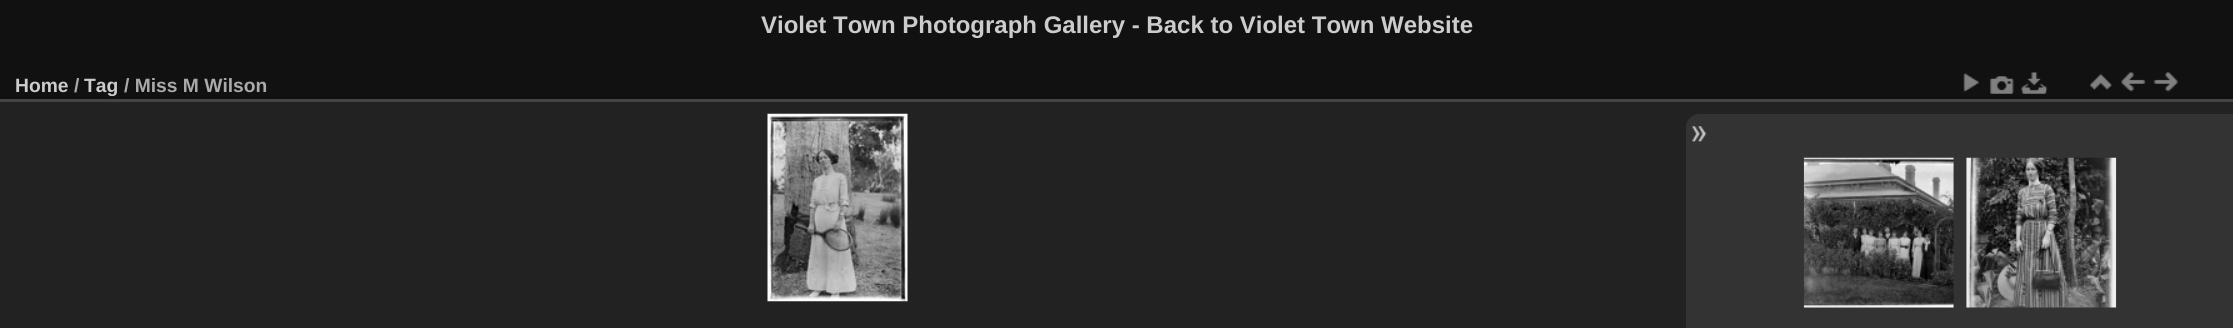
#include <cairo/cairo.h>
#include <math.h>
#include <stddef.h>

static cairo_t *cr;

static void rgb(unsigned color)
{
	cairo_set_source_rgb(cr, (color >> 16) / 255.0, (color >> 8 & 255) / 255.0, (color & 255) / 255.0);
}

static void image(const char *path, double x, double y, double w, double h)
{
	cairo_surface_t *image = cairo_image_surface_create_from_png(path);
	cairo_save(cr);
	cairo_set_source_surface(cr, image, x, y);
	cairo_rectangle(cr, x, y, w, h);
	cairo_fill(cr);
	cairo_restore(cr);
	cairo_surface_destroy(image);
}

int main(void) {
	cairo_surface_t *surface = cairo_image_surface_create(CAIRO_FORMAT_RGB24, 2233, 328);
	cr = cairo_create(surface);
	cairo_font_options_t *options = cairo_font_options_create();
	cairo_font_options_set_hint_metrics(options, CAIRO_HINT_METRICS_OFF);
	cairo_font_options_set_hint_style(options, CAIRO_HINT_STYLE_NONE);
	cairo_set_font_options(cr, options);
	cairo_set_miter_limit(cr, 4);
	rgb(0x111111);
	cairo_paint(cr);
	rgb(0x222222);
	cairo_rectangle(cr, 0, 102, 2233, 226);
	cairo_fill(cr);
	rgb(0x444444);
	cairo_rectangle(cr, 0, 99, 2233, 3);
	cairo_fill(cr);
	image("img/1.png", 1963, 73, 16, 19);
	image("img/2.png", 1990, 76, 24, 18);
	image("img/3.png", 2021, 72, 27, 22);
	image("img/4.png", 2090, 73, 22, 18);
	image("img/5.png", 2121, 72, 25, 20);
	image("img/6.png", 2153, 72, 25, 20);
	image("img/7.png", 767, 113, 141, 189);
	rgb(0x333333);
	cairo_new_path(cr);
	cairo_move_to(cr, 1699, 114);
	cairo_line_to(cr, 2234, 114);
	cairo_line_to(cr, 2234, 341);
	cairo_line_to(cr, 1699, 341);
	cairo_curve_to(cr, 1692, 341, 1686, 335, 1686, 328);
	cairo_line_to(cr, 1686, 127);
	cairo_curve_to(cr, 1686, 120, 1692, 114, 1699, 114);
	cairo_close_path(cr);
	cairo_fill(cr);
	image("img/8.png", 1803, 157, 151, 151);
	image("img/9.png", 1966, 157, 151, 151);
	image("img/10.png", 1692, 126, 15, 16);
	cairo_select_font_face(cr, "Liberation Sans", CAIRO_FONT_SLANT_NORMAL, CAIRO_FONT_WEIGHT_BOLD);
	cairo_set_font_size(cr, 24);
	rgb(0xcccccc);
	cairo_move_to(cr, 761, 33);
	cairo_show_text(cr, "Violet Town Photograph Gallery - Back to Violet Town Website");
	cairo_set_font_size(cr, 19.25);
	cairo_move_to(cr, 15, 92);
	cairo_show_text(cr, "Home");
	rgb(0xaaaaaa);
	cairo_move_to(cr, 74, 92);
	cairo_show_text(cr, "/");
	rgb(0xcccccc);
	cairo_move_to(cr, 84, 92);
	cairo_show_text(cr, "Tag");
	rgb(0xaaaaaa);
	cairo_move_to(cr, 124, 92);
	cairo_show_text(cr, "/ Miss M Wilson");
	cairo_surface_write_to_png(surface, "page.png");
	cairo_font_options_destroy(options);
	cairo_destroy(cr);
	cairo_surface_destroy(surface);
	return 0;
}
